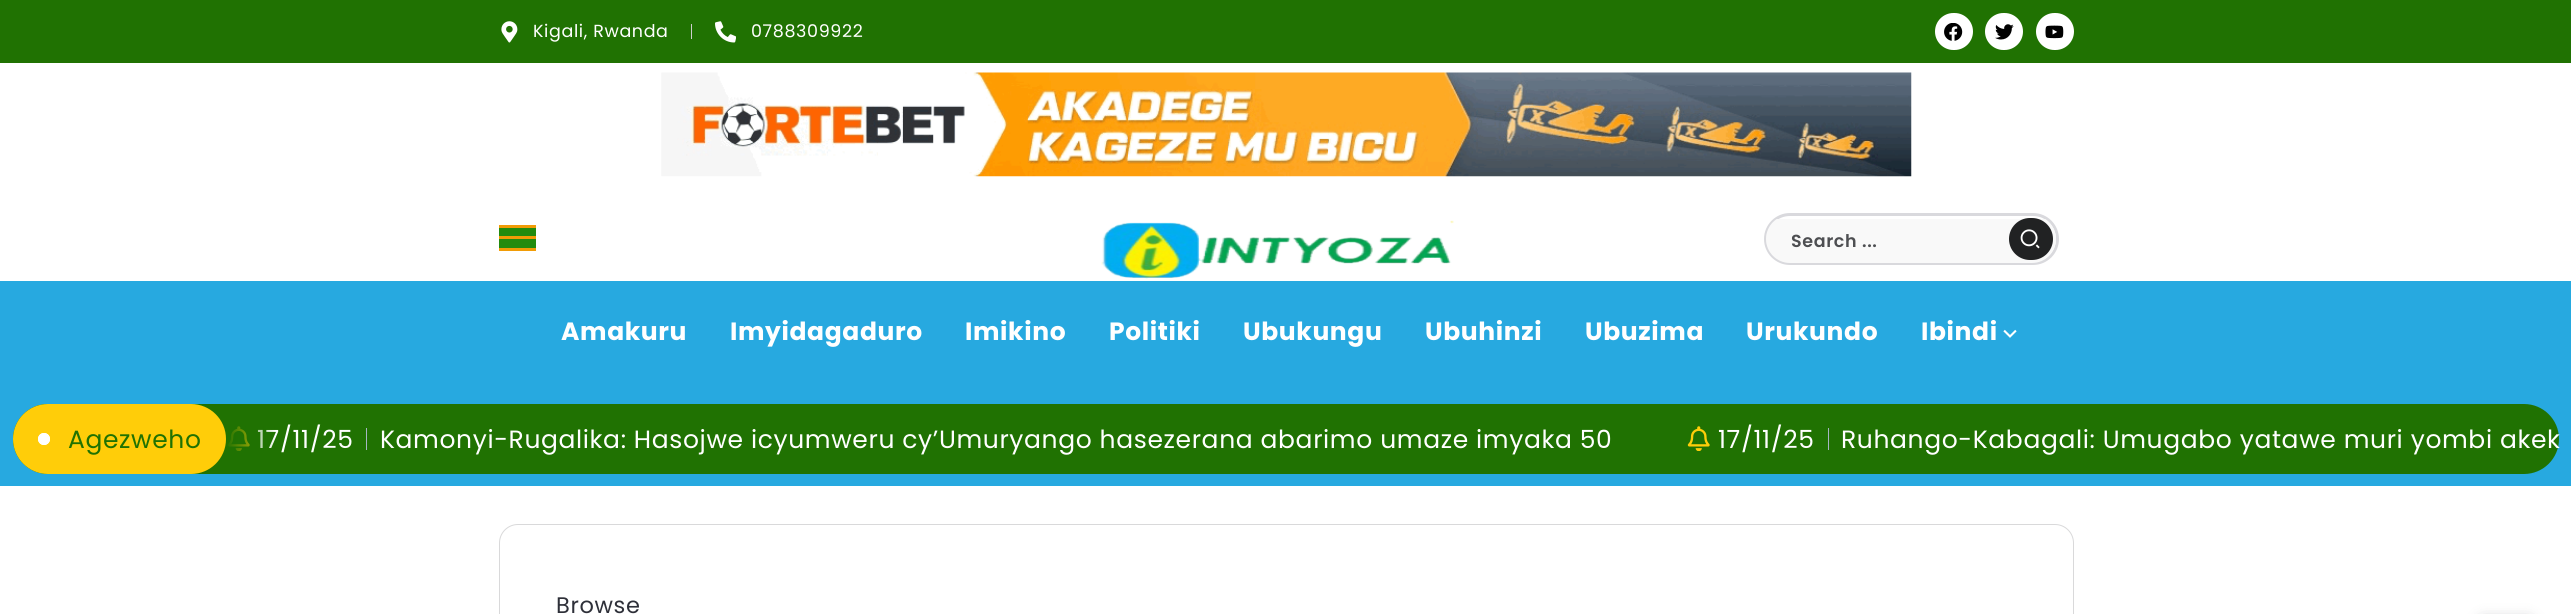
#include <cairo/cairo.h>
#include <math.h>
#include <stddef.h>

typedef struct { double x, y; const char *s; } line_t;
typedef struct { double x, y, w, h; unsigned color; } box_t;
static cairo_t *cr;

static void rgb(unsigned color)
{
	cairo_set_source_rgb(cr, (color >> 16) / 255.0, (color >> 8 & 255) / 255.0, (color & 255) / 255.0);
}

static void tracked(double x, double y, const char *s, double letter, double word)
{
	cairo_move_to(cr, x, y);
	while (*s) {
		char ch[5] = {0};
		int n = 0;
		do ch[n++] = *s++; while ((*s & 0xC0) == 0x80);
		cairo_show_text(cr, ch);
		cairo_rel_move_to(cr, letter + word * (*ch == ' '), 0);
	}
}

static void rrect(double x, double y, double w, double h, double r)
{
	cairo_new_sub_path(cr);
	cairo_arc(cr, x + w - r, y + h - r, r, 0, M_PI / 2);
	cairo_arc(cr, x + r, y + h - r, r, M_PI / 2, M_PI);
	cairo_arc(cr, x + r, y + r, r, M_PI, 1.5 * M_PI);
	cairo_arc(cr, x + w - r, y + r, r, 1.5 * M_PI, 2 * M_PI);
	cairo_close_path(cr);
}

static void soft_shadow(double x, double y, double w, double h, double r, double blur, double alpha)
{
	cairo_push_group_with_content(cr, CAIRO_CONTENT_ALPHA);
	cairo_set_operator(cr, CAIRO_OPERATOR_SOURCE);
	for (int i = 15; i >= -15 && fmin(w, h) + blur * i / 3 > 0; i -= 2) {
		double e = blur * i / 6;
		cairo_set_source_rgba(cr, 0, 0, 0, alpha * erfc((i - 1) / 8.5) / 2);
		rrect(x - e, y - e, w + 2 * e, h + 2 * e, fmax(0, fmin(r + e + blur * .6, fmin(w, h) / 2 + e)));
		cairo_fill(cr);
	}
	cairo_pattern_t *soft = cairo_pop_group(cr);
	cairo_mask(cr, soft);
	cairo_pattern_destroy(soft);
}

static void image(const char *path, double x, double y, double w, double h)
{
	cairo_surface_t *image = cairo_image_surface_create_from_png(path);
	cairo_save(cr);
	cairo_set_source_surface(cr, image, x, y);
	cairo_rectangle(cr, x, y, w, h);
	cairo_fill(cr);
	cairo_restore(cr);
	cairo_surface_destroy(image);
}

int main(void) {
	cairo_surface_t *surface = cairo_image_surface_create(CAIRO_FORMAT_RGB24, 2571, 614);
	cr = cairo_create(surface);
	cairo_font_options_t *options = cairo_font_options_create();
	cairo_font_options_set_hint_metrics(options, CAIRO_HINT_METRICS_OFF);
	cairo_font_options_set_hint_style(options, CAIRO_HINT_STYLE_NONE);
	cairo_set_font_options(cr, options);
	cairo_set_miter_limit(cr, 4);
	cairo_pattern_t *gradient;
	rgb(0xffffff);
	cairo_paint(cr);
	rgb(0x207202);
	cairo_rectangle(cr, 0, 0, 2571, 63);
	cairo_fill(cr);
	image("img/1.png", 501, 21, 17, 22);
	rgb(0xcecece);
	cairo_rectangle(cr, 691, 24, 1, 15);
	cairo_fill(cr);
	image("img/2.png", 715, 21, 21, 22);
	rgb(0xffffff);
	rrect(1935, 13, 38, 37, 18.5);
	cairo_fill(cr);
	image("img/3.png", 1944, 23, 19, 18);
	rrect(1985, 13, 38, 37, 18.5);
	cairo_fill(cr);
	image("img/4.png", 1995, 24, 19, 16);
	rrect(2036, 13, 38, 37, 18.5);
	cairo_fill(cr);
	image("img/5.png", 2045, 25, 19, 14);
	image("img/6.png", 661, 72, 1251, 105);
	{
		static const box_t items[] = {
			{499, 228, 37, 20, 0x228b0e},
			{499, 225, 37, 3, 0xf19c06},
			{499, 236, 37, 3, 0xf19c06},
			{499, 248, 37, 3, 0xf19c06},
		};
		for (size_t i = 0; i < sizeof items / sizeof *items; i++) {
			rgb(items[i].color);
			cairo_rectangle(cr, items[i].x, items[i].y, items[i].w, items[i].h);
			cairo_fill(cr);
		}
	}
	image("img/7.png", 1101, 220, 353, 59);
	rrect(1765.5, 214.5, 292, 49, 24.5);
	rgb(0xd9d9dd);
	cairo_set_line_width(cr, 3);
	cairo_stroke(cr);
	cairo_save(cr);
	rrect(1766, 215, 290, 48, 24);
	cairo_clip(cr);
	rgb(0xf9f9f9);
	cairo_new_path(cr);
	cairo_move_to(cr, 1770, 219);
	cairo_line_to(cr, 2052, 219);
	cairo_curve_to(cr, 2054, 219, 2056, 221, 2056, 223);
	cairo_line_to(cr, 2056, 239);
	cairo_curve_to(cr, 2056, 252.5, 2045.5, 263, 2032, 263);
	cairo_line_to(cr, 1790, 263);
	cairo_curve_to(cr, 1776.5, 263, 1766, 252.5, 1766, 239);
	cairo_line_to(cr, 1766, 223);
	cairo_curve_to(cr, 1766, 221, 1768, 219, 1770, 219);
	cairo_close_path(cr);
	cairo_fill(cr);
	cairo_restore(cr);
	rgb(0x212223);
	rrect(2009, 218, 44, 42, 21);
	cairo_fill(cr);
	image("img/8.png", 2020, 229, 20, 20);
	rgb(0x27a9e0);
	cairo_rectangle(cr, 0, 281, 2571, 205);
	cairo_fill(cr);
	image("img/9.png", 2003, 329, 14, 9);
	rgb(0x207202);
	rrect(13, 404, 2546, 70, 35);
	cairo_fill(cr);
	rgb(0xffcd09);
	rrect(13, 404, 213, 70, 35);
	cairo_fill(cr);
	rgb(0xffffff);
	cairo_arc(cr, 44, 439, 5.5, 0, 2 * M_PI);
	cairo_fill_preserve(cr);
	cairo_set_line_width(cr, 1);
	cairo_stroke(cr);
	cairo_arc(cr, 44, 439, 5.5, 0, 2 * M_PI);
	cairo_stroke(cr);
	image("img/10.png", 227, 426, 23, 25);
	rgb(0xa5b6c2);
	cairo_rectangle(cr, 366, 428, 1, 22);
	cairo_fill(cr);
	image("img/10.png", 1687, 426, 23, 25);
	cairo_rectangle(cr, 1828, 428, 1, 22);
	cairo_fill(cr);
	rrect(499.5, 524.5, 1574, 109, 18.5);
	rgb(0xd9d9da);
	cairo_stroke(cr);
	rgb(0x28292f);
	soft_shadow(2478, 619, 56, 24, 6, 7.5, 0.24);
	cairo_select_font_face(cr, "Poppins", CAIRO_FONT_SLANT_NORMAL, CAIRO_FONT_WEIGHT_NORMAL);
	cairo_set_font_size(cr, 17.5);
	rgb(0xffffff);
	tracked(533, 37, "Kigali, Rwanda", 0.62, 0);
	tracked(751, 37, "0788309922", 0.62, 0);
	cairo_select_font_face(cr, "Poppins SemiBold", CAIRO_FONT_SLANT_NORMAL, CAIRO_FONT_WEIGHT_NORMAL);
	rgb(0x4e4f52);
	tracked(1791, 247, "Search ...", 0.62, 0);
	cairo_select_font_face(cr, "Poppins", CAIRO_FONT_SLANT_NORMAL, CAIRO_FONT_WEIGHT_BOLD);
	cairo_set_font_size(cr, 25);
	rgb(0xffffff);
	{
		static const line_t items[] = {
			{561, 340, "Amakuru"},
			{730, 340, "Imyidagaduro"},
			{965, 340, "Imikino"},
			{1109, 340, "Politiki"},
			{1243, 340, "Ubukungu"},
			{1425, 340, "Ubuhinzi"},
			{1585, 340, "Ubuzima"},
			{1746, 340, "Urukundo"},
			{1921, 340, "Ibindi"},
		};
		for (size_t i = 0; i < sizeof items / sizeof *items; i++) {
			tracked(items[i].x, items[i].y, items[i].s, 0.62, 0);
		}
	}
	cairo_select_font_face(cr, "Poppins", CAIRO_FONT_SLANT_NORMAL, CAIRO_FONT_WEIGHT_NORMAL);
	rgb(0x207202);
	tracked(68, 448, "Agezweho", 0.62, 0);
	rgb(0xffffff);
	tracked(257, 448, "17/11/25", 0.62, 0);
	gradient = cairo_pattern_create_linear(226, 439, 276, 439);
	cairo_pattern_add_color_stop_rgba(gradient, 0, 0.125, 0.447, 0.008, 1);
	cairo_pattern_add_color_stop_rgba(gradient, 1, 0.125, 0.447, 0.008, 0);
	cairo_set_source(cr, gradient);
	cairo_pattern_destroy(gradient);
	cairo_rectangle(cr, 227, 426, 48, 25);
	cairo_fill(cr);
	rgb(0xffffff);
	{
		static const line_t items[] = {
			{380, 448, "Kamonyi-Rugalika: Hasojwe icyumweru cy’Umuryango hasezerana abarimo umaze imyaka 50"},
			{1718, 448, "17/11/25"},
			{1841, 448, "Ruhango-Kabagali: Umugabo yatawe muri yombi akek"},
		};
		for (size_t i = 0; i < sizeof items / sizeof *items; i++) {
			tracked(items[i].x, items[i].y, items[i].s, 0.62, 0);
		}
	}
	cairo_set_font_size(cr, 22.5);
	rgb(0x2e3039);
	tracked(556, 613, "Browse", 0.62, 0);
	cairo_surface_write_to_png(surface, "page.png");
	cairo_font_options_destroy(options);
	cairo_destroy(cr);
	cairo_surface_destroy(surface);
	return 0;
}
